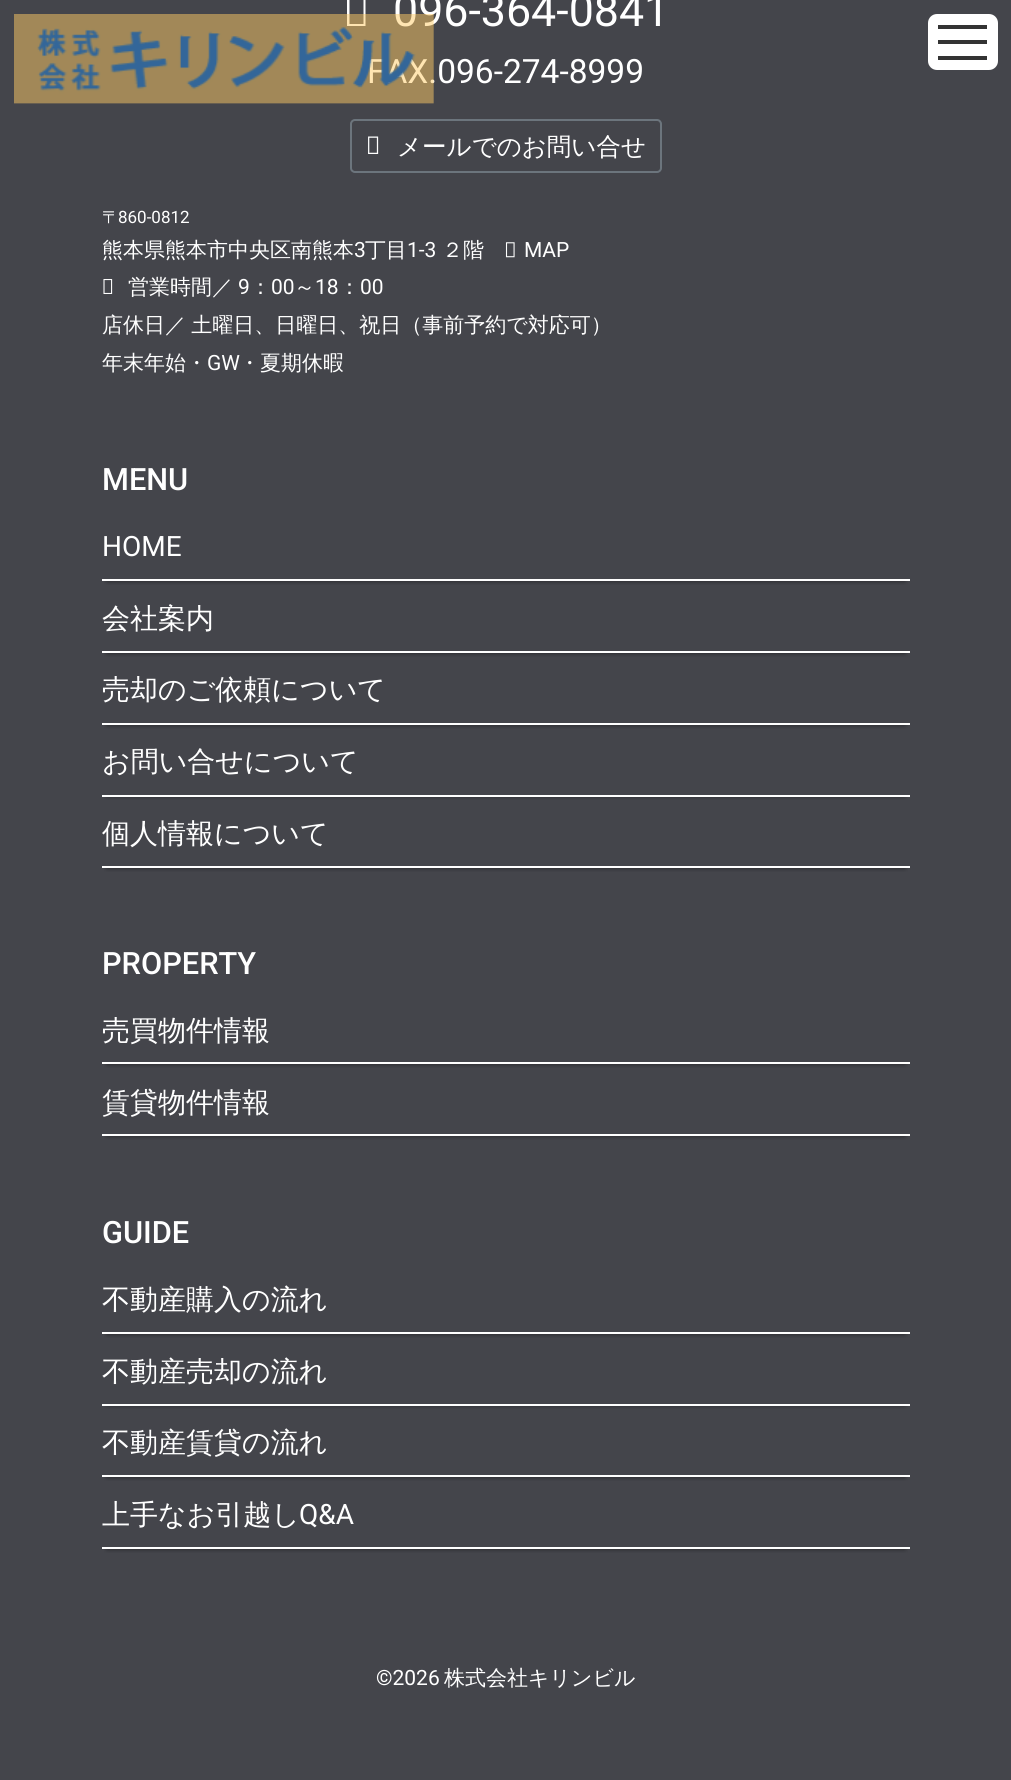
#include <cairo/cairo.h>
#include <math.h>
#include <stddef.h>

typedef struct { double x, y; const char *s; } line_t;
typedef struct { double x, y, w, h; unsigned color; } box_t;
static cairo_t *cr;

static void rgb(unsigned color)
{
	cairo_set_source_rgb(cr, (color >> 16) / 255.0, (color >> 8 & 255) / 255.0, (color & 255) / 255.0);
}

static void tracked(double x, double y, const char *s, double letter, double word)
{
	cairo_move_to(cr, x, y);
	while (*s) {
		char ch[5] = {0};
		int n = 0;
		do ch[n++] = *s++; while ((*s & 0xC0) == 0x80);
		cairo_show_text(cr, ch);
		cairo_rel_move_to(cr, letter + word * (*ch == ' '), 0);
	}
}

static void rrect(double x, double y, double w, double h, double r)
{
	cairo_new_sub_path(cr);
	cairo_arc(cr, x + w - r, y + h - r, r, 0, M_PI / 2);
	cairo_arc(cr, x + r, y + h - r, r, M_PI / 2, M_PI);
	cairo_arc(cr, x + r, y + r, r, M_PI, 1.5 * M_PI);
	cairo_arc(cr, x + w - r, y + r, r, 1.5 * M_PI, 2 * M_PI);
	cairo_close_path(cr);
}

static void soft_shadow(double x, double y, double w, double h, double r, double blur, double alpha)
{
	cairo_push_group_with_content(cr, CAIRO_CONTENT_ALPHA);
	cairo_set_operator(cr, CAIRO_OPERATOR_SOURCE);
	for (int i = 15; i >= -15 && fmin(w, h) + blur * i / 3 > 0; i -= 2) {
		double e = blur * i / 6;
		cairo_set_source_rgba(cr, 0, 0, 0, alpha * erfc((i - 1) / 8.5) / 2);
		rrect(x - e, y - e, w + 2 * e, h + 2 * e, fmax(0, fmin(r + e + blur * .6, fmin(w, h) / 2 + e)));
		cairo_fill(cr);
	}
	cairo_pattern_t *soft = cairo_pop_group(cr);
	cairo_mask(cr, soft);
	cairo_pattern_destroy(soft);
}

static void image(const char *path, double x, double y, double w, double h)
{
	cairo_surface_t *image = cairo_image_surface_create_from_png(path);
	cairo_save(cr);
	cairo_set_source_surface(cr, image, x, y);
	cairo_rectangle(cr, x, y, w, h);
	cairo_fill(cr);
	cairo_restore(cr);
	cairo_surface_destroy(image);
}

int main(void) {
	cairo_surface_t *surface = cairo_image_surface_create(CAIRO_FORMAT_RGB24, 1011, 1780);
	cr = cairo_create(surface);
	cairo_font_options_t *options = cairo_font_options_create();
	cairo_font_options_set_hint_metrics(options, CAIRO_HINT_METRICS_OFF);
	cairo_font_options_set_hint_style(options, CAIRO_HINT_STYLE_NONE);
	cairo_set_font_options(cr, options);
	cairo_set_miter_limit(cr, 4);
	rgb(0x44454b);
	cairo_paint(cr);
	rgb(0xffffff);
	cairo_new_path(cr);
	cairo_move_to(cr, 347, 26);
	cairo_line_to(cr, 347, -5.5);
	cairo_line_to(cr, 365.5, -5.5);
	cairo_line_to(cr, 365.5, 26);
	cairo_close_path(cr);
	cairo_move_to(cr, 349.5, 24);
	cairo_line_to(cr, 363.5, 24);
	cairo_line_to(cr, 363.5, -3.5);
	cairo_line_to(cr, 349.5, -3.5);
	cairo_close_path(cr);
	cairo_fill(cr);
	rrect(351, 120, 310, 52, 4);
	rgb(0x6c757d);
	cairo_stroke(cr);
	image("img/1.png", 368, 136, 11, 18);
	image("img/2.png", 505, 242, 10, 16);
	image("img/3.png", 103, 279, 10, 15);
	cairo_save(cr);
	cairo_rectangle(cr, 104, 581, 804, 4);
	cairo_clip(cr);
	rgb(0x000000);
	soft_shadow(107, 534, 798, 47, 0, 2.5, 0.5);
	cairo_restore(cr);
	rgb(0xffffff);
	cairo_rectangle(cr, 102, 579, 808, 2);
	cairo_fill(cr);
	cairo_save(cr);
	cairo_rectangle(cr, 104, 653, 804, 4);
	cairo_clip(cr);
	rgb(0x000000);
	soft_shadow(107, 606, 798, 47, 0, 2.5, 0.5);
	cairo_restore(cr);
	cairo_rectangle(cr, 102, 651, 808, 2);
	cairo_fill(cr);
	cairo_save(cr);
	cairo_rectangle(cr, 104, 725, 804, 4);
	cairo_clip(cr);
	rgb(0x000000);
	soft_shadow(107, 677, 798, 48, 0, 2.5, 0.5);
	cairo_restore(cr);
	cairo_rectangle(cr, 102, 723, 808, 2);
	cairo_fill(cr);
	cairo_save(cr);
	cairo_rectangle(cr, 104, 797, 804, 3);
	cairo_clip(cr);
	rgb(0x000000);
	soft_shadow(107, 749, 798, 47, 0, 2.5, 0.5);
	cairo_restore(cr);
	cairo_rectangle(cr, 102, 795, 808, 2);
	cairo_fill(cr);
	cairo_save(cr);
	cairo_rectangle(cr, 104, 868, 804, 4);
	cairo_clip(cr);
	rgb(0x000000);
	soft_shadow(107, 821, 798, 47, 0, 2.5, 0.5);
	cairo_restore(cr);
	cairo_rectangle(cr, 102, 866, 808, 2);
	cairo_fill(cr);
	cairo_save(cr);
	cairo_rectangle(cr, 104, 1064, 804, 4);
	cairo_clip(cr);
	rgb(0x000000);
	soft_shadow(107, 1017, 798, 47, 0, 2.5, 0.5);
	cairo_restore(cr);
	cairo_rectangle(cr, 102, 1062, 808, 2);
	cairo_fill(cr);
	cairo_save(cr);
	cairo_rectangle(cr, 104, 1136, 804, 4);
	cairo_clip(cr);
	rgb(0x000000);
	soft_shadow(107, 1089, 798, 47, 0, 2.5, 0.5);
	cairo_restore(cr);
	cairo_rectangle(cr, 102, 1134, 808, 2);
	cairo_fill(cr);
	cairo_save(cr);
	cairo_rectangle(cr, 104, 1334, 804, 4);
	cairo_clip(cr);
	rgb(0x000000);
	soft_shadow(107, 1286, 798, 48, 0, 2.5, 0.5);
	cairo_restore(cr);
	cairo_rectangle(cr, 102, 1332, 808, 2);
	cairo_fill(cr);
	cairo_save(cr);
	cairo_rectangle(cr, 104, 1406, 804, 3);
	cairo_clip(cr);
	rgb(0x000000);
	soft_shadow(107, 1358, 798, 47, 0, 2.5, 0.5);
	cairo_restore(cr);
	cairo_rectangle(cr, 102, 1404, 808, 2);
	cairo_fill(cr);
	cairo_save(cr);
	cairo_rectangle(cr, 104, 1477, 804, 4);
	cairo_clip(cr);
	rgb(0x000000);
	soft_shadow(107, 1430, 798, 47, 0, 2.5, 0.5);
	cairo_restore(cr);
	cairo_rectangle(cr, 102, 1475, 808, 2);
	cairo_fill(cr);
	cairo_save(cr);
	cairo_rectangle(cr, 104, 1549, 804, 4);
	cairo_clip(cr);
	rgb(0x000000);
	soft_shadow(107, 1502, 798, 47, 0, 2.5, 0.5);
	cairo_restore(cr);
	cairo_rectangle(cr, 102, 1547, 808, 2);
	cairo_fill(cr);
	rrect(928, 14, 70, 56, 9);
	cairo_fill(cr);
	{
		static const box_t items[] = {
			{938, 25, 49, 4, 0x333333},
			{938, 40, 49, 4, 0x333333},
			{938, 56, 49, 4, 0x333333},
		};
		for (size_t i = 0; i < sizeof items / sizeof *items; i++) {
			rgb(items[i].color);
			cairo_rectangle(cr, items[i].x, items[i].y, items[i].w, items[i].h);
			cairo_fill(cr);
		}
	}
	cairo_select_font_face(cr, "Roboto", CAIRO_FONT_SLANT_NORMAL, CAIRO_FONT_WEIGHT_NORMAL);
	cairo_set_font_size(cr, 44.75);
	rgb(0xffffff);
	cairo_move_to(cr, 393, 26);
	cairo_show_text(cr, "096-364-0841");
	cairo_set_font_size(cr, 33.5);
	cairo_move_to(cr, 367, 83);
	cairo_show_text(cr, "FAX.096-274-8999");
	cairo_select_font_face(cr, "WenQuanYi Zen Hei Medium", CAIRO_FONT_SLANT_NORMAL, CAIRO_FONT_WEIGHT_NORMAL);
	cairo_set_font_size(cr, 24.5);
	cairo_move_to(cr, 397, 155);
	cairo_show_text(cr, "メールでのお問い合せ");
	cairo_set_font_size(cr, 17);
	cairo_move_to(cr, 102, 223);
	cairo_show_text(cr, "〒");
	cairo_select_font_face(cr, "Roboto", CAIRO_FONT_SLANT_NORMAL, CAIRO_FONT_WEIGHT_NORMAL);
	cairo_move_to(cr, 118, 223);
	cairo_show_text(cr, "860-0812");
	cairo_select_font_face(cr, "WenQuanYi Zen Hei Medium", CAIRO_FONT_SLANT_NORMAL, CAIRO_FONT_WEIGHT_NORMAL);
	cairo_set_font_size(cr, 21);
	cairo_move_to(cr, 102, 257);
	cairo_show_text(cr, "熊本県熊本市中央区南熊本");
	cairo_select_font_face(cr, "Roboto", CAIRO_FONT_SLANT_NORMAL, CAIRO_FONT_WEIGHT_NORMAL);
	cairo_move_to(cr, 354, 257);
	cairo_show_text(cr, "3");
	cairo_select_font_face(cr, "WenQuanYi Zen Hei Medium", CAIRO_FONT_SLANT_NORMAL, CAIRO_FONT_WEIGHT_NORMAL);
	cairo_move_to(cr, 365, 257);
	cairo_show_text(cr, "丁目");
	cairo_select_font_face(cr, "Roboto", CAIRO_FONT_SLANT_NORMAL, CAIRO_FONT_WEIGHT_NORMAL);
	cairo_move_to(cr, 407, 257);
	cairo_show_text(cr, "1-3");
	cairo_select_font_face(cr, "WenQuanYi Zen Hei Medium", CAIRO_FONT_SLANT_NORMAL, CAIRO_FONT_WEIGHT_NORMAL);
	cairo_move_to(cr, 442, 257);
	cairo_show_text(cr, "２階");
	cairo_select_font_face(cr, "Roboto", CAIRO_FONT_SLANT_NORMAL, CAIRO_FONT_WEIGHT_NORMAL);
	cairo_move_to(cr, 524, 257);
	cairo_show_text(cr, "MAP");
	cairo_select_font_face(cr, "WenQuanYi Zen Hei Medium", CAIRO_FONT_SLANT_NORMAL, CAIRO_FONT_WEIGHT_NORMAL);
	cairo_move_to(cr, 128, 294);
	cairo_show_text(cr, "営業時間／");
	cairo_select_font_face(cr, "Roboto", CAIRO_FONT_SLANT_NORMAL, CAIRO_FONT_WEIGHT_NORMAL);
	cairo_move_to(cr, 238, 294);
	cairo_show_text(cr, "9");
	cairo_select_font_face(cr, "WenQuanYi Zen Hei Medium", CAIRO_FONT_SLANT_NORMAL, CAIRO_FONT_WEIGHT_NORMAL);
	cairo_move_to(cr, 250, 294);
	cairo_show_text(cr, "：");
	cairo_select_font_face(cr, "Roboto", CAIRO_FONT_SLANT_NORMAL, CAIRO_FONT_WEIGHT_NORMAL);
	cairo_move_to(cr, 271, 294);
	cairo_show_text(cr, "00");
	cairo_select_font_face(cr, "WenQuanYi Zen Hei Medium", CAIRO_FONT_SLANT_NORMAL, CAIRO_FONT_WEIGHT_NORMAL);
	cairo_move_to(cr, 294, 294);
	cairo_show_text(cr, "～");
	cairo_select_font_face(cr, "Roboto", CAIRO_FONT_SLANT_NORMAL, CAIRO_FONT_WEIGHT_NORMAL);
	cairo_move_to(cr, 315, 294);
	cairo_show_text(cr, "18");
	cairo_select_font_face(cr, "WenQuanYi Zen Hei Medium", CAIRO_FONT_SLANT_NORMAL, CAIRO_FONT_WEIGHT_NORMAL);
	cairo_move_to(cr, 339, 294);
	cairo_show_text(cr, "：");
	cairo_select_font_face(cr, "Roboto", CAIRO_FONT_SLANT_NORMAL, CAIRO_FONT_WEIGHT_NORMAL);
	cairo_move_to(cr, 360, 294);
	cairo_show_text(cr, "00");
	cairo_select_font_face(cr, "WenQuanYi Zen Hei Medium", CAIRO_FONT_SLANT_NORMAL, CAIRO_FONT_WEIGHT_NORMAL);
	tracked(102, 332, "店休日／ 土曜日、日曜日、祝日（事前予約で対応可）", 0, -1);
	cairo_move_to(cr, 102, 370);
	cairo_show_text(cr, "年末年始・");
	cairo_select_font_face(cr, "Roboto", CAIRO_FONT_SLANT_NORMAL, CAIRO_FONT_WEIGHT_NORMAL);
	cairo_move_to(cr, 207, 370);
	cairo_show_text(cr, "GW");
	cairo_select_font_face(cr, "WenQuanYi Zen Hei Medium", CAIRO_FONT_SLANT_NORMAL, CAIRO_FONT_WEIGHT_NORMAL);
	cairo_move_to(cr, 239, 370);
	cairo_show_text(cr, "・夏期休暇");
	cairo_select_font_face(cr, "Roboto Medium", CAIRO_FONT_SLANT_NORMAL, CAIRO_FONT_WEIGHT_NORMAL);
	cairo_set_font_size(cr, 30.75);
	cairo_move_to(cr, 102, 490);
	cairo_show_text(cr, "MENU");
	cairo_select_font_face(cr, "Roboto", CAIRO_FONT_SLANT_NORMAL, CAIRO_FONT_WEIGHT_NORMAL);
	cairo_set_font_size(cr, 28);
	cairo_move_to(cr, 102, 556);
	cairo_show_text(cr, "HOME");
	cairo_select_font_face(cr, "WenQuanYi Zen Hei Medium", CAIRO_FONT_SLANT_NORMAL, CAIRO_FONT_WEIGHT_NORMAL);
	{
		static const line_t items[] = {
			{102, 628, "会社案内"},
			{102, 699, "売却のご依頼について"},
			{102, 771, "お問い合せについて"},
			{102, 843, "個人情報について"},
		};
		for (size_t i = 0; i < sizeof items / sizeof *items; i++) {
			cairo_move_to(cr, items[i].x, items[i].y);
			cairo_show_text(cr, items[i].s);
		}
	}
	cairo_select_font_face(cr, "Roboto Medium", CAIRO_FONT_SLANT_NORMAL, CAIRO_FONT_WEIGHT_NORMAL);
	cairo_set_font_size(cr, 30.75);
	cairo_move_to(cr, 102, 974);
	cairo_show_text(cr, "PROPERTY");
	cairo_select_font_face(cr, "WenQuanYi Zen Hei Medium", CAIRO_FONT_SLANT_NORMAL, CAIRO_FONT_WEIGHT_NORMAL);
	cairo_set_font_size(cr, 28);
	cairo_move_to(cr, 102, 1040);
	cairo_show_text(cr, "売買物件情報");
	cairo_move_to(cr, 102, 1112);
	cairo_show_text(cr, "賃貸物件情報");
	cairo_select_font_face(cr, "Roboto Medium", CAIRO_FONT_SLANT_NORMAL, CAIRO_FONT_WEIGHT_NORMAL);
	cairo_set_font_size(cr, 30.75);
	cairo_move_to(cr, 102, 1243);
	cairo_show_text(cr, "GUIDE");
	cairo_select_font_face(cr, "WenQuanYi Zen Hei Medium", CAIRO_FONT_SLANT_NORMAL, CAIRO_FONT_WEIGHT_NORMAL);
	cairo_set_font_size(cr, 28);
	{
		static const line_t items[] = {
			{102, 1309, "不動産購入の流れ"},
			{102, 1381, "不動産売却の流れ"},
			{102, 1452, "不動産賃貸の流れ"},
			{102, 1524, "上手なお引越し"},
		};
		for (size_t i = 0; i < sizeof items / sizeof *items; i++) {
			cairo_move_to(cr, items[i].x, items[i].y);
			cairo_show_text(cr, items[i].s);
		}
	}
	cairo_select_font_face(cr, "Roboto", CAIRO_FONT_SLANT_NORMAL, CAIRO_FONT_WEIGHT_NORMAL);
	cairo_move_to(cr, 299, 1524);
	cairo_show_text(cr, "Q&A");
	cairo_set_font_size(cr, 21);
	cairo_move_to(cr, 376, 1685);
	cairo_show_text(cr, "©2026");
	cairo_select_font_face(cr, "WenQuanYi Zen Hei Medium", CAIRO_FONT_SLANT_NORMAL, CAIRO_FONT_WEIGHT_NORMAL);
	cairo_move_to(cr, 444, 1685);
	cairo_show_text(cr, "株式会社キリンビル");
	image("img/4.png", 14, 14, 420, 90);
	cairo_surface_write_to_png(surface, "page.png");
	cairo_font_options_destroy(options);
	cairo_destroy(cr);
	cairo_surface_destroy(surface);
	return 0;
}
